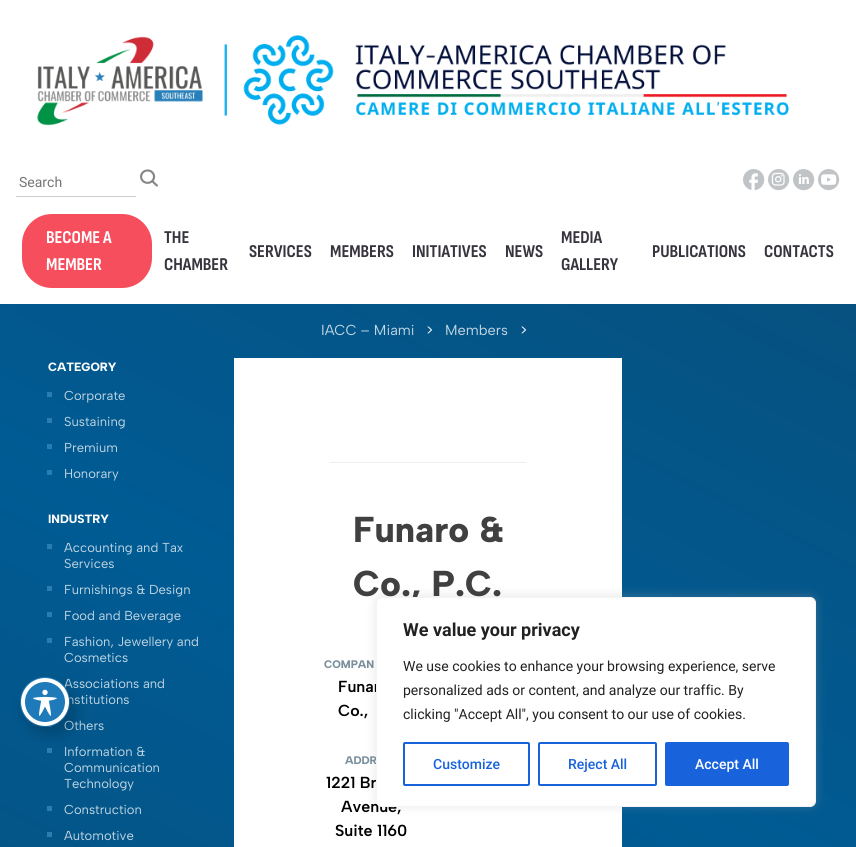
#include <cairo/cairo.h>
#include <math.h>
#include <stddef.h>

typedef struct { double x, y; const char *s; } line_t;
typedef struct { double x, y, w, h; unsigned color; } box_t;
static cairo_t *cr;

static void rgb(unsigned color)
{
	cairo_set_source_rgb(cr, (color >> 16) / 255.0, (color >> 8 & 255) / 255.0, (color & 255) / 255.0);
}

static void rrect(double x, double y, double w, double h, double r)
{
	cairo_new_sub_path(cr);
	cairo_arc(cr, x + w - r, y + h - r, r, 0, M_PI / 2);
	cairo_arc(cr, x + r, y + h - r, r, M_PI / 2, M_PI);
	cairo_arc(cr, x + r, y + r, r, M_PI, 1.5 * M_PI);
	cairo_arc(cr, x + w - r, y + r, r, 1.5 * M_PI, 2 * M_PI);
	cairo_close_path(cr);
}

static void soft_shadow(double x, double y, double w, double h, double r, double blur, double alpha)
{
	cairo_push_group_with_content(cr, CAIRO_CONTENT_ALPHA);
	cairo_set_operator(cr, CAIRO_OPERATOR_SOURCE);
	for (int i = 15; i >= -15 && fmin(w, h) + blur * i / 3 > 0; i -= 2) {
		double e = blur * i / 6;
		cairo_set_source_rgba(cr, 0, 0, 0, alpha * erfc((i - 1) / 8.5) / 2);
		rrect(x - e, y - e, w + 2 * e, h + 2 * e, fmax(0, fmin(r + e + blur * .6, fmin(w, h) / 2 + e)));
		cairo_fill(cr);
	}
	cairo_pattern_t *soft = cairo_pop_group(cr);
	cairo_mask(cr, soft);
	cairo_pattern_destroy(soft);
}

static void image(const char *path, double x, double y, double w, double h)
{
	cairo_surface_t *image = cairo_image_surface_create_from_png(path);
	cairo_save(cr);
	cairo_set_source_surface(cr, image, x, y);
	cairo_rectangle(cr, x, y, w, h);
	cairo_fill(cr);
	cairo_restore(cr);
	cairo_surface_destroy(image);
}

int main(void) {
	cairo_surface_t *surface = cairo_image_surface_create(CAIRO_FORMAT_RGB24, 856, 847);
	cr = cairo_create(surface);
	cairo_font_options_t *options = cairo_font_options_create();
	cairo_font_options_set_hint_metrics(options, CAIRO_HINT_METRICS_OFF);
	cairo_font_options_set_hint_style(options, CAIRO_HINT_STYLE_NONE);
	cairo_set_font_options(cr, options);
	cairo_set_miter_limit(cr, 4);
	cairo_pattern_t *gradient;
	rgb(0xffffff);
	cairo_paint(cr);
	image("img/1.png", 37, 35, 752, 91);
	rgb(0xcccccc);
	cairo_rectangle(cr, 16, 196, 120, 1);
	cairo_fill(cr);
	image("img/2.png", 140, 169, 18, 18);
	image("img/3.png", 743, 169, 22, 22);
	image("img/4.png", 768, 169, 22, 22);
	image("img/5.png", 793, 169, 22, 22);
	image("img/6.png", 818, 169, 22, 22);
	rgb(0xf64e5d);
	rrect(22, 214, 130, 74, 30);
	cairo_fill(cr);
	gradient = cairo_pattern_create_linear(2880, 27, 544, 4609);
	cairo_pattern_add_color_stop_rgba(gradient, 0, 0.078, 0.231, 0.325, 1);
	cairo_pattern_add_color_stop_rgba(gradient, 0.33, 0, 0.357, 0.58, 1);
	cairo_pattern_add_color_stop_rgba(gradient, 0.67, 0.078, 0.231, 0.325, 1);
	cairo_pattern_add_color_stop_rgba(gradient, 1, 0, 0.357, 0.58, 1);
	cairo_set_source(cr, gradient);
	cairo_pattern_destroy(gradient);
	cairo_rectangle(cr, 0, 304, 856, 543);
	cairo_fill(cr);
	{
		static const box_t items[] = {
			{47, 392, 5, 5, 0x2a7db1},
			{47, 418, 5, 5, 0x2a7db1},
			{47, 444, 5, 5, 0x2a7db1},
			{47, 470, 5, 5, 0x2a7db1},
			{47, 544, 5, 5, 0x2a7db1},
			{47, 586, 5, 5, 0x2a7db1},
			{47, 612, 5, 5, 0x2a7db1},
			{47, 638, 5, 5, 0x2a7db1},
			{47, 725, 5, 2, 0x2a7db1},
			{47, 748, 5, 5, 0x2a7db1},
			{47, 806, 5, 5, 0x2a7db1},
			{47, 832, 5, 5, 0x2a7db1},
			{234, 358, 388, 489, 0xffffff},
			{330, 462, 196, 1, 0xefefef},
		};
		for (size_t i = 0; i < sizeof items / sizeof *items; i++) {
			rgb(items[i].color);
			cairo_rectangle(cr, items[i].x, items[i].y, items[i].w, items[i].h);
			cairo_fill(cr);
		}
	}
	rgb(0xacabab);
	soft_shadow(376, 596, 440, 210, 6, 5, 0.3);
	cairo_select_font_face(cr, "Roboto", CAIRO_FONT_SLANT_NORMAL, CAIRO_FONT_WEIGHT_NORMAL);
	cairo_set_font_size(cr, 14);
	rgb(0x757575);
	cairo_move_to(cr, 19, 187);
	cairo_show_text(cr, "Search");
	cairo_select_font_face(cr, "Sofia Sans Condensed", CAIRO_FONT_SLANT_NORMAL, CAIRO_FONT_WEIGHT_BOLD);
	cairo_set_font_size(cr, 18);
	rgb(0xffffff);
	cairo_move_to(cr, 46, 243);
	cairo_show_text(cr, "BECOME A");
	cairo_move_to(cr, 46, 270);
	cairo_show_text(cr, "MEMBER");
	rgb(0x37343e);
	{
		static const line_t items[] = {
			{164, 243, "THE"},
			{164, 270, "CHAMBER"},
			{249, 257, "SERVICES"},
			{330, 257, "MEMBERS"},
			{412, 257, "INITIATIVES"},
			{505, 257, "NEWS"},
			{561, 243, "MEDIA"},
			{561, 270, "GALLERY"},
			{652, 257, "PUBLICATIONS"},
			{764, 257, "CONTACTS"},
		};
		for (size_t i = 0; i < sizeof items / sizeof *items; i++) {
			cairo_move_to(cr, items[i].x, items[i].y);
			cairo_show_text(cr, items[i].s);
		}
	}
	cairo_select_font_face(cr, "Albert Sans", CAIRO_FONT_SLANT_NORMAL, CAIRO_FONT_WEIGHT_NORMAL);
	cairo_set_font_size(cr, 14.5);
	rgb(0xc0d5e2);
	cairo_move_to(cr, 321, 335);
	cairo_show_text(cr, "IACC – Miami");
	rgb(0xffffff);
	cairo_move_to(cr, 426, 335);
	cairo_show_text(cr, ">");
	rgb(0xc0d5e2);
	cairo_move_to(cr, 445, 335);
	cairo_show_text(cr, "Members");
	rgb(0xffffff);
	cairo_move_to(cr, 520, 335);
	cairo_show_text(cr, ">");
	cairo_select_font_face(cr, "Albert Sans ExtraBold", CAIRO_FONT_SLANT_NORMAL, CAIRO_FONT_WEIGHT_NORMAL);
	cairo_set_font_size(cr, 12);
	cairo_move_to(cr, 48, 371);
	cairo_show_text(cr, "CATEGORY");
	cairo_select_font_face(cr, "Albert Sans", CAIRO_FONT_SLANT_NORMAL, CAIRO_FONT_WEIGHT_NORMAL);
	cairo_set_font_size(cr, 13);
	rgb(0xc0d5e2);
	{
		static const line_t items[] = {
			{64, 400, "Corporate"},
			{64, 426, "Sustaining"},
			{64, 452, "Premium"},
			{64, 478, "Honorary"},
		};
		for (size_t i = 0; i < sizeof items / sizeof *items; i++) {
			cairo_move_to(cr, items[i].x, items[i].y);
			cairo_show_text(cr, items[i].s);
		}
	}
	cairo_select_font_face(cr, "Albert Sans ExtraBold", CAIRO_FONT_SLANT_NORMAL, CAIRO_FONT_WEIGHT_NORMAL);
	cairo_set_font_size(cr, 12);
	rgb(0xffffff);
	cairo_move_to(cr, 48, 523);
	cairo_show_text(cr, "INDUSTRY");
	cairo_select_font_face(cr, "Albert Sans", CAIRO_FONT_SLANT_NORMAL, CAIRO_FONT_WEIGHT_NORMAL);
	cairo_set_font_size(cr, 13);
	rgb(0xc0d5e2);
	{
		static const line_t items[] = {
			{64, 552, "Accounting and Tax"},
			{64, 568, "Services"},
			{64, 594, "Furnishings & Design"},
			{64, 620, "Food and Beverage"},
			{64, 646, "Fashion, Jewellery and"},
			{64, 662, "Cosmetics"},
			{64, 688, "Associations and"},
			{67, 704, "nstitutions"},
			{64, 730, "Others"},
			{64, 756, "Information &"},
			{64, 772, "Communication"},
			{64, 788, "Technology"},
			{64, 814, "Construction"},
			{64, 840, "Automotive"},
		};
		for (size_t i = 0; i < sizeof items / sizeof *items; i++) {
			cairo_move_to(cr, items[i].x, items[i].y);
			cairo_show_text(cr, items[i].s);
		}
	}
	cairo_select_font_face(cr, "Albert Sans ExtraBold", CAIRO_FONT_SLANT_NORMAL, CAIRO_FONT_WEIGHT_NORMAL);
	cairo_set_font_size(cr, 36);
	rgb(0x404040);
	cairo_move_to(cr, 353, 542);
	cairo_show_text(cr, "Funaro &");
	cairo_move_to(cr, 353, 596);
	cairo_show_text(cr, "Co., P.C.");
	cairo_set_font_size(cr, 11);
	rgb(0x788e9c);
	cairo_move_to(cr, 324, 668);
	cairo_show_text(cr, "COMPAN");
	cairo_select_font_face(cr, "Albert Sans SemiBold", CAIRO_FONT_SLANT_NORMAL, CAIRO_FONT_WEIGHT_NORMAL);
	cairo_set_font_size(cr, 16);
	rgb(0x000000);
	cairo_move_to(cr, 338, 692);
	cairo_show_text(cr, "Funar");
	cairo_move_to(cr, 338, 716);
	cairo_show_text(cr, "Co.,");
	cairo_select_font_face(cr, "Albert Sans ExtraBold", CAIRO_FONT_SLANT_NORMAL, CAIRO_FONT_WEIGHT_NORMAL);
	cairo_set_font_size(cr, 11);
	rgb(0x788e9c);
	cairo_move_to(cr, 345, 764);
	cairo_show_text(cr, "ADDR");
	cairo_select_font_face(cr, "Albert Sans SemiBold", CAIRO_FONT_SLANT_NORMAL, CAIRO_FONT_WEIGHT_NORMAL);
	cairo_set_font_size(cr, 16);
	rgb(0x000000);
	{
		static const line_t items[] = {
			{326, 788, "1221 Br"},
			{341, 812, "Avenue,"},
			{335, 836, "Suite 1160"},
		};
		for (size_t i = 0; i < sizeof items / sizeof *items; i++) {
			cairo_move_to(cr, items[i].x, items[i].y);
			cairo_show_text(cr, items[i].s);
		}
	}
	cairo_new_path(cr);
	cairo_arc(cr, 45, 702, 24.5, 0, 2 * M_PI);
	rgb(0x1e7ab9);
	cairo_set_line_width(cr, 1);
	cairo_stroke(cr);
	rgb(0x000000);
	soft_shadow(27, 686, 48, 48, 24, 8, 0.2);
	rgb(0x1e7ab9);
	cairo_arc(cr, 45, 702, 22, 0, 2 * M_PI);
	cairo_fill_preserve(cr);
	rgb(0xffffff);
	cairo_set_line_width(cr, 4);
	cairo_stroke(cr);
	image("img/7.png", 33, 689, 24, 27);
	rrect(376.5, 597.5, 439, 209, 5.5);
	cairo_fill_preserve(cr);
	rgb(0xf4f4f4);
	cairo_set_line_width(cr, 1);
	cairo_stroke(cr);
	cairo_select_font_face(cr, "Roboto", CAIRO_FONT_SLANT_NORMAL, CAIRO_FONT_WEIGHT_BOLD);
	cairo_set_font_size(cr, 18);
	rgb(0x212121);
	cairo_move_to(cr, 403, 636);
	cairo_show_text(cr, "We value your privacy");
	cairo_select_font_face(cr, "Roboto", CAIRO_FONT_SLANT_NORMAL, CAIRO_FONT_WEIGHT_NORMAL);
	cairo_set_font_size(cr, 14);
	{
		static const line_t items[] = {
			{403, 671, "We use cookies to enhance your browsing experience, serve"},
			{403, 695, "personalized ads or content, and analyze our traffic. By"},
			{403, 719, "clicking \"Accept All\", you consent to our use of cookies."},
		};
		for (size_t i = 0; i < sizeof items / sizeof *items; i++) {
			cairo_move_to(cr, items[i].x, items[i].y);
			cairo_show_text(cr, items[i].s);
		}
	}
	rrect(404, 743, 125, 42, 1);
	rgb(0x1863dc);
	cairo_set_line_width(cr, 2);
	cairo_stroke(cr);
	cairo_select_font_face(cr, "Roboto Medium", CAIRO_FONT_SLANT_NORMAL, CAIRO_FONT_WEIGHT_NORMAL);
	cairo_move_to(cr, 433, 769);
	cairo_show_text(cr, "Customize");
	rrect(539, 743, 117, 42, 1);
	cairo_stroke(cr);
	cairo_move_to(cr, 568, 769);
	cairo_show_text(cr, "Reject All");
	rrect(666, 743, 122, 42, 1);
	cairo_fill_preserve(cr);
	cairo_stroke(cr);
	rgb(0xffffff);
	cairo_move_to(cr, 695, 769);
	cairo_show_text(cr, "Accept All");
	cairo_surface_write_to_png(surface, "page.png");
	cairo_font_options_destroy(options);
	cairo_destroy(cr);
	cairo_surface_destroy(surface);
	return 0;
}
